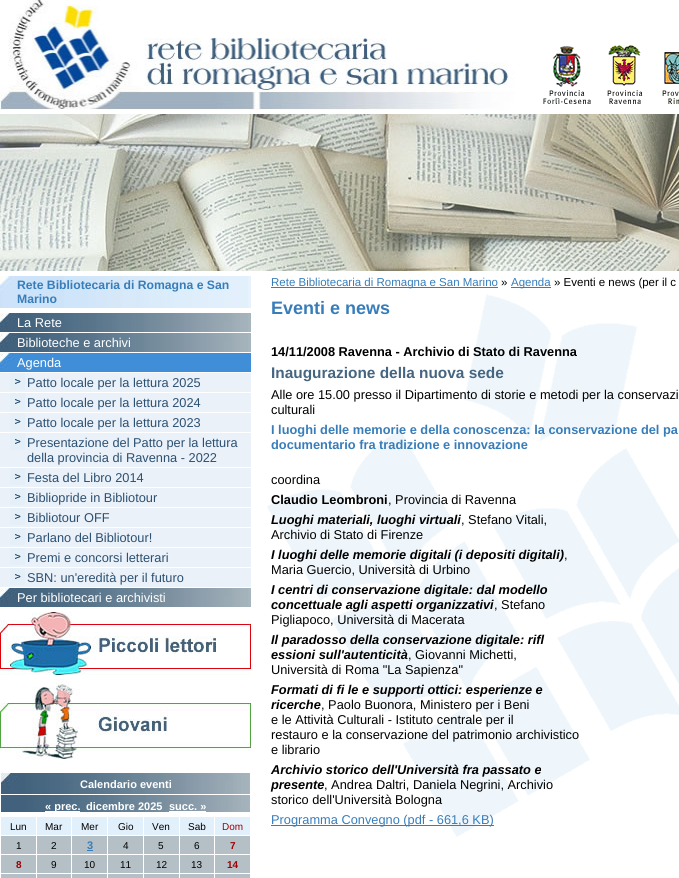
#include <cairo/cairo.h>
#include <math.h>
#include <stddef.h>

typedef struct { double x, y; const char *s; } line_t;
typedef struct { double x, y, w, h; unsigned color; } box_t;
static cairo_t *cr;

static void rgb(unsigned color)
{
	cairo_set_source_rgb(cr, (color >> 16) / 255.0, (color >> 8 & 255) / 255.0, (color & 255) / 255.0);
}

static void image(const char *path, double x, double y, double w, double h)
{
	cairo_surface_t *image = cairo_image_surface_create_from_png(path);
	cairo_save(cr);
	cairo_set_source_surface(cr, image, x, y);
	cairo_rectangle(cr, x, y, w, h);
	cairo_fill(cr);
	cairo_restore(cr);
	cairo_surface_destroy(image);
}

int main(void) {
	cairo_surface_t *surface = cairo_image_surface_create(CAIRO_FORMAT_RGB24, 679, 878);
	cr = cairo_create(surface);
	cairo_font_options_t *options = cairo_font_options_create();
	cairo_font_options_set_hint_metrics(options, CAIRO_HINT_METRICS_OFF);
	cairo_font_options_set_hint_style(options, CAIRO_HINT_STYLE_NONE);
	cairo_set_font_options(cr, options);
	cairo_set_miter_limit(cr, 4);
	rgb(0xffffff);
	cairo_paint(cr);
	image("img/1.png", 0, 0, 515, 110);
	image("img/2.png", 543, 46, 48, 58);
	image("img/3.png", 607, 45, 36, 59);
	image("img/4.png", 662, 49, 17, 55);
	image("img/5.png", 0, 114, 679, 157);
	image("img/6.png", 0, 276, 251, 32);
	image("img/7.png", 0, 313, 251, 19);
	image("img/7.png", 0, 333, 251, 19);
	image("img/8.png", 0, 353, 251, 19);
	rgb(0xeaf1f9);
	cairo_rectangle(cr, 0, 373, 251, 19);
	cairo_fill(cr);
	image("img/9.png", 10, 373, 15, 17);
	cairo_rectangle(cr, 0, 393, 251, 19);
	cairo_fill(cr);
	image("img/9.png", 10, 393, 15, 17);
	cairo_rectangle(cr, 0, 413, 251, 19);
	cairo_fill(cr);
	image("img/9.png", 10, 413, 15, 17);
	cairo_rectangle(cr, 0, 433, 251, 34);
	cairo_fill(cr);
	image("img/9.png", 10, 433, 15, 17);
	cairo_rectangle(cr, 0, 468, 251, 19);
	cairo_fill(cr);
	image("img/9.png", 10, 468, 15, 17);
	cairo_rectangle(cr, 0, 488, 251, 19);
	cairo_fill(cr);
	image("img/9.png", 10, 488, 15, 17);
	cairo_rectangle(cr, 0, 508, 251, 19);
	cairo_fill(cr);
	image("img/9.png", 10, 508, 15, 17);
	cairo_rectangle(cr, 0, 528, 251, 19);
	cairo_fill(cr);
	image("img/9.png", 10, 528, 15, 17);
	cairo_rectangle(cr, 0, 548, 251, 19);
	cairo_fill(cr);
	image("img/9.png", 10, 548, 15, 17);
	cairo_rectangle(cr, 0, 568, 251, 19);
	cairo_fill(cr);
	image("img/9.png", 10, 568, 15, 17);
	image("img/7.png", 0, 588, 251, 19);
	image("img/10.png", 0, 612, 251, 63);
	image("img/11.png", 0, 679, 251, 80);
	image("img/12.png", 1, 773, 249, 21);
	image("img/13.png", 1, 795, 249, 17);
	{
		static const box_t items[] = {
			{45, 811, 35, 1, 0xffffff},
			{169, 811, 37, 1, 0xffffff},
			{1, 817, 35, 18, 0xe2f0fb},
			{37, 817, 34, 18, 0xe2f0fb},
			{72, 817, 35, 18, 0xe2f0fb},
			{108, 817, 35, 18, 0xe2f0fb},
			{144, 817, 35, 18, 0xe2f0fb},
			{180, 817, 34, 18, 0xe2f0fb},
			{215, 817, 35, 18, 0xe2f0fb},
			{1, 836, 35, 18, 0xb4c0c5},
			{37, 836, 34, 18, 0xb4c0c5},
			{72, 836, 35, 18, 0xb4c0c5},
			{87, 850, 6, 1, 0x387db9},
			{108, 836, 35, 18, 0xb4c0c5},
			{144, 836, 35, 18, 0xb4c0c5},
			{180, 836, 34, 18, 0xb4c0c5},
			{215, 836, 35, 18, 0xb4c0c5},
			{1, 855, 35, 18, 0xb4c0c5},
			{37, 855, 34, 18, 0xb4c0c5},
			{72, 855, 35, 18, 0xb4c0c5},
			{108, 855, 35, 18, 0xb4c0c5},
			{144, 855, 35, 18, 0xb4c0c5},
			{180, 855, 34, 18, 0xb4c0c5},
			{215, 855, 35, 18, 0xb4c0c5},
			{1, 874, 35, 4, 0xb4c0c5},
			{37, 874, 34, 4, 0xb4c0c5},
			{72, 874, 35, 4, 0xb4c0c5},
			{108, 874, 35, 4, 0xb4c0c5},
			{144, 874, 35, 4, 0xb4c0c5},
			{180, 874, 34, 4, 0xb4c0c5},
			{215, 874, 35, 4, 0xb4c0c5},
		};
		for (size_t i = 0; i < sizeof items / sizeof *items; i++) {
			rgb(items[i].color);
			cairo_rectangle(cr, items[i].x, items[i].y, items[i].w, items[i].h);
			cairo_fill(cr);
		}
	}
	image("img/14.png", 267, 294, 412, 543);
	{
		static const box_t items[] = {
			{271, 287, 227, 1, 0x387db9},
			{511, 287, 40, 1, 0x387db9},
			{271, 825, 223, 1, 0x387db9},
		};
		for (size_t i = 0; i < sizeof items / sizeof *items; i++) {
			rgb(items[i].color);
			cairo_rectangle(cr, items[i].x, items[i].y, items[i].w, items[i].h);
			cairo_fill(cr);
		}
	}
	cairo_select_font_face(cr, "Liberation Sans", CAIRO_FONT_SLANT_NORMAL, CAIRO_FONT_WEIGHT_BOLD);
	cairo_set_font_size(cr, 12.2);
	cairo_move_to(cr, 17, 289);
	cairo_show_text(cr, "Rete Bibliotecaria di Romagna e San");
	cairo_move_to(cr, 17, 303);
	cairo_show_text(cr, "Marino");
	cairo_select_font_face(cr, "Liberation Sans", CAIRO_FONT_SLANT_NORMAL, CAIRO_FONT_WEIGHT_NORMAL);
	cairo_set_font_size(cr, 12.8);
	rgb(0xffffff);
	{
		static const line_t items[] = {
			{17, 327, "La Rete"},
			{17, 347, "Biblioteche e archivi"},
			{17, 367, "Agenda"},
		};
		for (size_t i = 0; i < sizeof items / sizeof *items; i++) {
			cairo_move_to(cr, items[i].x, items[i].y);
			cairo_show_text(cr, items[i].s);
		}
	}
	rgb(0x2c5071);
	{
		static const line_t items[] = {
			{27, 387, "Patto locale per la lettura 2025"},
			{27, 407, "Patto locale per la lettura 2024"},
			{27, 427, "Patto locale per la lettura 2023"},
			{27, 447, "Presentazione del Patto per la lettura"},
			{27, 462, "della provincia di Ravenna - 2022"},
			{27, 482, "Festa del Libro 2014"},
			{27, 502, "Bibliopride in Bibliotour"},
			{27, 522, "Bibliotour OFF"},
			{27, 542, "Parlano del Bibliotour!"},
			{27, 562, "Premi e concorsi letterari"},
			{27, 582, "SBN: un'eredità per il futuro"},
		};
		for (size_t i = 0; i < sizeof items / sizeof *items; i++) {
			cairo_move_to(cr, items[i].x, items[i].y);
			cairo_show_text(cr, items[i].s);
		}
	}
	rgb(0xffffff);
	cairo_move_to(cr, 17, 602);
	cairo_show_text(cr, "Per bibliotecari e archivisti");
	cairo_select_font_face(cr, "Liberation Sans", CAIRO_FONT_SLANT_NORMAL, CAIRO_FONT_WEIGHT_BOLD);
	cairo_set_font_size(cr, 11);
	{
		static const line_t items[] = {
			{80, 788, "Calendario eventi"},
			{45, 810, "« prec."},
			{86, 810, "dicembre 2025"},
			{169, 810, "succ. »"},
		};
		for (size_t i = 0; i < sizeof items / sizeof *items; i++) {
			cairo_move_to(cr, items[i].x, items[i].y);
			cairo_show_text(cr, items[i].s);
		}
	}
	cairo_select_font_face(cr, "Liberation Sans", CAIRO_FONT_SLANT_NORMAL, CAIRO_FONT_WEIGHT_NORMAL);
	cairo_set_font_size(cr, 10);
	rgb(0x000000);
	{
		static const line_t items[] = {
			{10, 830, "Lun"},
			{45, 830, "Mar"},
			{81, 830, "Mer"},
			{118, 830, "Gio"},
			{152, 830, "Ven"},
			{188, 830, "Sab"},
		};
		for (size_t i = 0; i < sizeof items / sizeof *items; i++) {
			cairo_move_to(cr, items[i].x, items[i].y);
			cairo_show_text(cr, items[i].s);
		}
	}
	rgb(0x9f0002);
	cairo_move_to(cr, 222, 830);
	cairo_show_text(cr, "Dom");
	rgb(0x000000);
	cairo_move_to(cr, 16, 849);
	cairo_show_text(cr, "1");
	cairo_move_to(cr, 51, 849);
	cairo_show_text(cr, "2");
	cairo_select_font_face(cr, "Liberation Sans", CAIRO_FONT_SLANT_NORMAL, CAIRO_FONT_WEIGHT_BOLD);
	cairo_set_font_size(cr, 11);
	rgb(0x387db9);
	cairo_move_to(cr, 87, 849);
	cairo_show_text(cr, "3");
	cairo_select_font_face(cr, "Liberation Sans", CAIRO_FONT_SLANT_NORMAL, CAIRO_FONT_WEIGHT_NORMAL);
	cairo_set_font_size(cr, 10);
	rgb(0x000000);
	{
		static const line_t items[] = {
			{123, 849, "4"},
			{158, 849, "5"},
			{194, 849, "6"},
		};
		for (size_t i = 0; i < sizeof items / sizeof *items; i++) {
			cairo_move_to(cr, items[i].x, items[i].y);
			cairo_show_text(cr, items[i].s);
		}
	}
	cairo_select_font_face(cr, "Liberation Sans", CAIRO_FONT_SLANT_NORMAL, CAIRO_FONT_WEIGHT_BOLD);
	rgb(0x9f0002);
	cairo_move_to(cr, 230, 849);
	cairo_show_text(cr, "7");
	cairo_move_to(cr, 16, 868);
	cairo_show_text(cr, "8");
	cairo_select_font_face(cr, "Liberation Sans", CAIRO_FONT_SLANT_NORMAL, CAIRO_FONT_WEIGHT_NORMAL);
	rgb(0x000000);
	{
		static const line_t items[] = {
			{51, 868, "9"},
			{84, 868, "10"},
			{120, 868, "11"},
			{156, 868, "12"},
			{191, 868, "13"},
		};
		for (size_t i = 0; i < sizeof items / sizeof *items; i++) {
			cairo_move_to(cr, items[i].x, items[i].y);
			cairo_show_text(cr, items[i].s);
		}
	}
	cairo_select_font_face(cr, "Liberation Sans", CAIRO_FONT_SLANT_NORMAL, CAIRO_FONT_WEIGHT_BOLD);
	rgb(0x9f0002);
	cairo_move_to(cr, 227, 868);
	cairo_show_text(cr, "14");
	cairo_select_font_face(cr, "Liberation Sans", CAIRO_FONT_SLANT_NORMAL, CAIRO_FONT_WEIGHT_NORMAL);
	cairo_set_font_size(cr, 11.5);
	rgb(0x387db9);
	cairo_move_to(cr, 271, 286);
	cairo_show_text(cr, "Rete Bibliotecaria di Romagna e San Marino");
	rgb(0x000000);
	cairo_move_to(cr, 501, 286);
	cairo_show_text(cr, "»");
	rgb(0x387db9);
	cairo_move_to(cr, 511, 286);
	cairo_show_text(cr, "Agenda");
	rgb(0x000000);
	cairo_move_to(cr, 554, 286);
	cairo_show_text(cr, "» Eventi e news (per il c");
	cairo_select_font_face(cr, "Liberation Sans", CAIRO_FONT_SLANT_NORMAL, CAIRO_FONT_WEIGHT_BOLD);
	cairo_set_font_size(cr, 18);
	rgb(0x387db9);
	cairo_move_to(cr, 271, 314);
	cairo_show_text(cr, "Eventi e news");
	cairo_set_font_size(cr, 12.8);
	rgb(0x000000);
	cairo_move_to(cr, 271, 356);
	cairo_show_text(cr, "14/11/2008 Ravenna - Archivio di Stato di Ravenna");
	cairo_set_font_size(cr, 15.4);
	rgb(0x466581);
	cairo_move_to(cr, 271, 378);
	cairo_show_text(cr, "Inaugurazione della nuova sede");
	cairo_select_font_face(cr, "Liberation Sans", CAIRO_FONT_SLANT_NORMAL, CAIRO_FONT_WEIGHT_NORMAL);
	cairo_set_font_size(cr, 12.8);
	rgb(0x000000);
	cairo_move_to(cr, 271, 399);
	cairo_show_text(cr, "Alle ore 15.00 presso il Dipartimento di storie e metodi per la conservazi");
	cairo_move_to(cr, 271, 414);
	cairo_show_text(cr, "culturali");
	cairo_select_font_face(cr, "Liberation Sans", CAIRO_FONT_SLANT_NORMAL, CAIRO_FONT_WEIGHT_BOLD);
	rgb(0x387db9);
	cairo_move_to(cr, 271, 434);
	cairo_show_text(cr, "I luoghi delle memorie e della conoscenza: la conservazione del pa");
	cairo_move_to(cr, 271, 449);
	cairo_show_text(cr, "documentario fra tradizione e innovazione");
	cairo_select_font_face(cr, "Liberation Sans", CAIRO_FONT_SLANT_NORMAL, CAIRO_FONT_WEIGHT_NORMAL);
	rgb(0x000000);
	cairo_move_to(cr, 271, 484);
	cairo_show_text(cr, "coordina");
	cairo_select_font_face(cr, "Liberation Sans", CAIRO_FONT_SLANT_NORMAL, CAIRO_FONT_WEIGHT_BOLD);
	cairo_move_to(cr, 271, 504);
	cairo_show_text(cr, "Claudio Leombroni");
	cairo_select_font_face(cr, "Liberation Sans", CAIRO_FONT_SLANT_NORMAL, CAIRO_FONT_WEIGHT_NORMAL);
	cairo_move_to(cr, 388, 504);
	cairo_show_text(cr, ", Provincia di Ravenna");
	cairo_select_font_face(cr, "Liberation Sans", CAIRO_FONT_SLANT_ITALIC, CAIRO_FONT_WEIGHT_BOLD);
	cairo_move_to(cr, 271, 524);
	cairo_show_text(cr, "Luoghi materiali, luoghi virtuali");
	cairo_select_font_face(cr, "Liberation Sans", CAIRO_FONT_SLANT_NORMAL, CAIRO_FONT_WEIGHT_NORMAL);
	cairo_move_to(cr, 461, 524);
	cairo_show_text(cr, ", Stefano Vitali,");
	cairo_move_to(cr, 271, 539);
	cairo_show_text(cr, "Archivio di Stato di Firenze");
	cairo_select_font_face(cr, "Liberation Sans", CAIRO_FONT_SLANT_ITALIC, CAIRO_FONT_WEIGHT_BOLD);
	cairo_move_to(cr, 271, 559);
	cairo_show_text(cr, "I luoghi delle memorie digitali (i depositi digitali)");
	cairo_select_font_face(cr, "Liberation Sans", CAIRO_FONT_SLANT_NORMAL, CAIRO_FONT_WEIGHT_NORMAL);
	cairo_move_to(cr, 564, 559);
	cairo_show_text(cr, ",");
	cairo_move_to(cr, 271, 574);
	cairo_show_text(cr, "Maria Guercio, Università di Urbino");
	cairo_select_font_face(cr, "Liberation Sans", CAIRO_FONT_SLANT_ITALIC, CAIRO_FONT_WEIGHT_BOLD);
	cairo_move_to(cr, 271, 594);
	cairo_show_text(cr, "I centri di conservazione digitale: dal modello");
	cairo_move_to(cr, 271, 609);
	cairo_show_text(cr, "concettuale agli aspetti organizzativi");
	cairo_select_font_face(cr, "Liberation Sans", CAIRO_FONT_SLANT_NORMAL, CAIRO_FONT_WEIGHT_NORMAL);
	cairo_move_to(cr, 494, 609);
	cairo_show_text(cr, ", Stefano");
	cairo_move_to(cr, 271, 624);
	cairo_show_text(cr, "Pigliapoco, Università di Macerata");
	cairo_select_font_face(cr, "Liberation Sans", CAIRO_FONT_SLANT_ITALIC, CAIRO_FONT_WEIGHT_BOLD);
	cairo_move_to(cr, 271, 644);
	cairo_show_text(cr, "Il paradosso della conservazione digitale: rifl");
	cairo_move_to(cr, 271, 659);
	cairo_show_text(cr, "essioni sull'autenticità");
	cairo_select_font_face(cr, "Liberation Sans", CAIRO_FONT_SLANT_NORMAL, CAIRO_FONT_WEIGHT_NORMAL);
	cairo_move_to(cr, 408, 659);
	cairo_show_text(cr, ", Giovanni Michetti,");
	cairo_move_to(cr, 271, 674);
	cairo_show_text(cr, "Università di Roma \"La Sapienza\"");
	cairo_select_font_face(cr, "Liberation Sans", CAIRO_FONT_SLANT_ITALIC, CAIRO_FONT_WEIGHT_BOLD);
	cairo_move_to(cr, 271, 694);
	cairo_show_text(cr, "Formati di fi le e supporti ottici: esperienze e");
	cairo_move_to(cr, 271, 709);
	cairo_show_text(cr, "ricerche");
	cairo_select_font_face(cr, "Liberation Sans", CAIRO_FONT_SLANT_NORMAL, CAIRO_FONT_WEIGHT_NORMAL);
	{
		static const line_t items[] = {
			{321, 709, ", Paolo Buonora, Ministero per i Beni"},
			{271, 724, "e le Attività Culturali - Istituto centrale per il"},
			{271, 739, "restauro e la conservazione del patrimonio archivistico"},
			{271, 754, "e librario"},
		};
		for (size_t i = 0; i < sizeof items / sizeof *items; i++) {
			cairo_move_to(cr, items[i].x, items[i].y);
			cairo_show_text(cr, items[i].s);
		}
	}
	cairo_select_font_face(cr, "Liberation Sans", CAIRO_FONT_SLANT_ITALIC, CAIRO_FONT_WEIGHT_BOLD);
	cairo_move_to(cr, 271, 774);
	cairo_show_text(cr, "Archivio storico dell'Università fra passato e");
	cairo_move_to(cr, 271, 789);
	cairo_show_text(cr, "presente");
	cairo_select_font_face(cr, "Liberation Sans", CAIRO_FONT_SLANT_NORMAL, CAIRO_FONT_WEIGHT_NORMAL);
	cairo_move_to(cr, 324, 789);
	cairo_show_text(cr, ", Andrea Daltri, Daniela Negrini, Archivio");
	cairo_move_to(cr, 271, 804);
	cairo_show_text(cr, "storico dell'Università Bologna");
	rgb(0x387db9);
	cairo_move_to(cr, 271, 824);
	cairo_show_text(cr, "Programma Convegno (pdf - 661,6 KB)");
	cairo_surface_write_to_png(surface, "page.png");
	cairo_font_options_destroy(options);
	cairo_destroy(cr);
	cairo_surface_destroy(surface);
	return 0;
}
